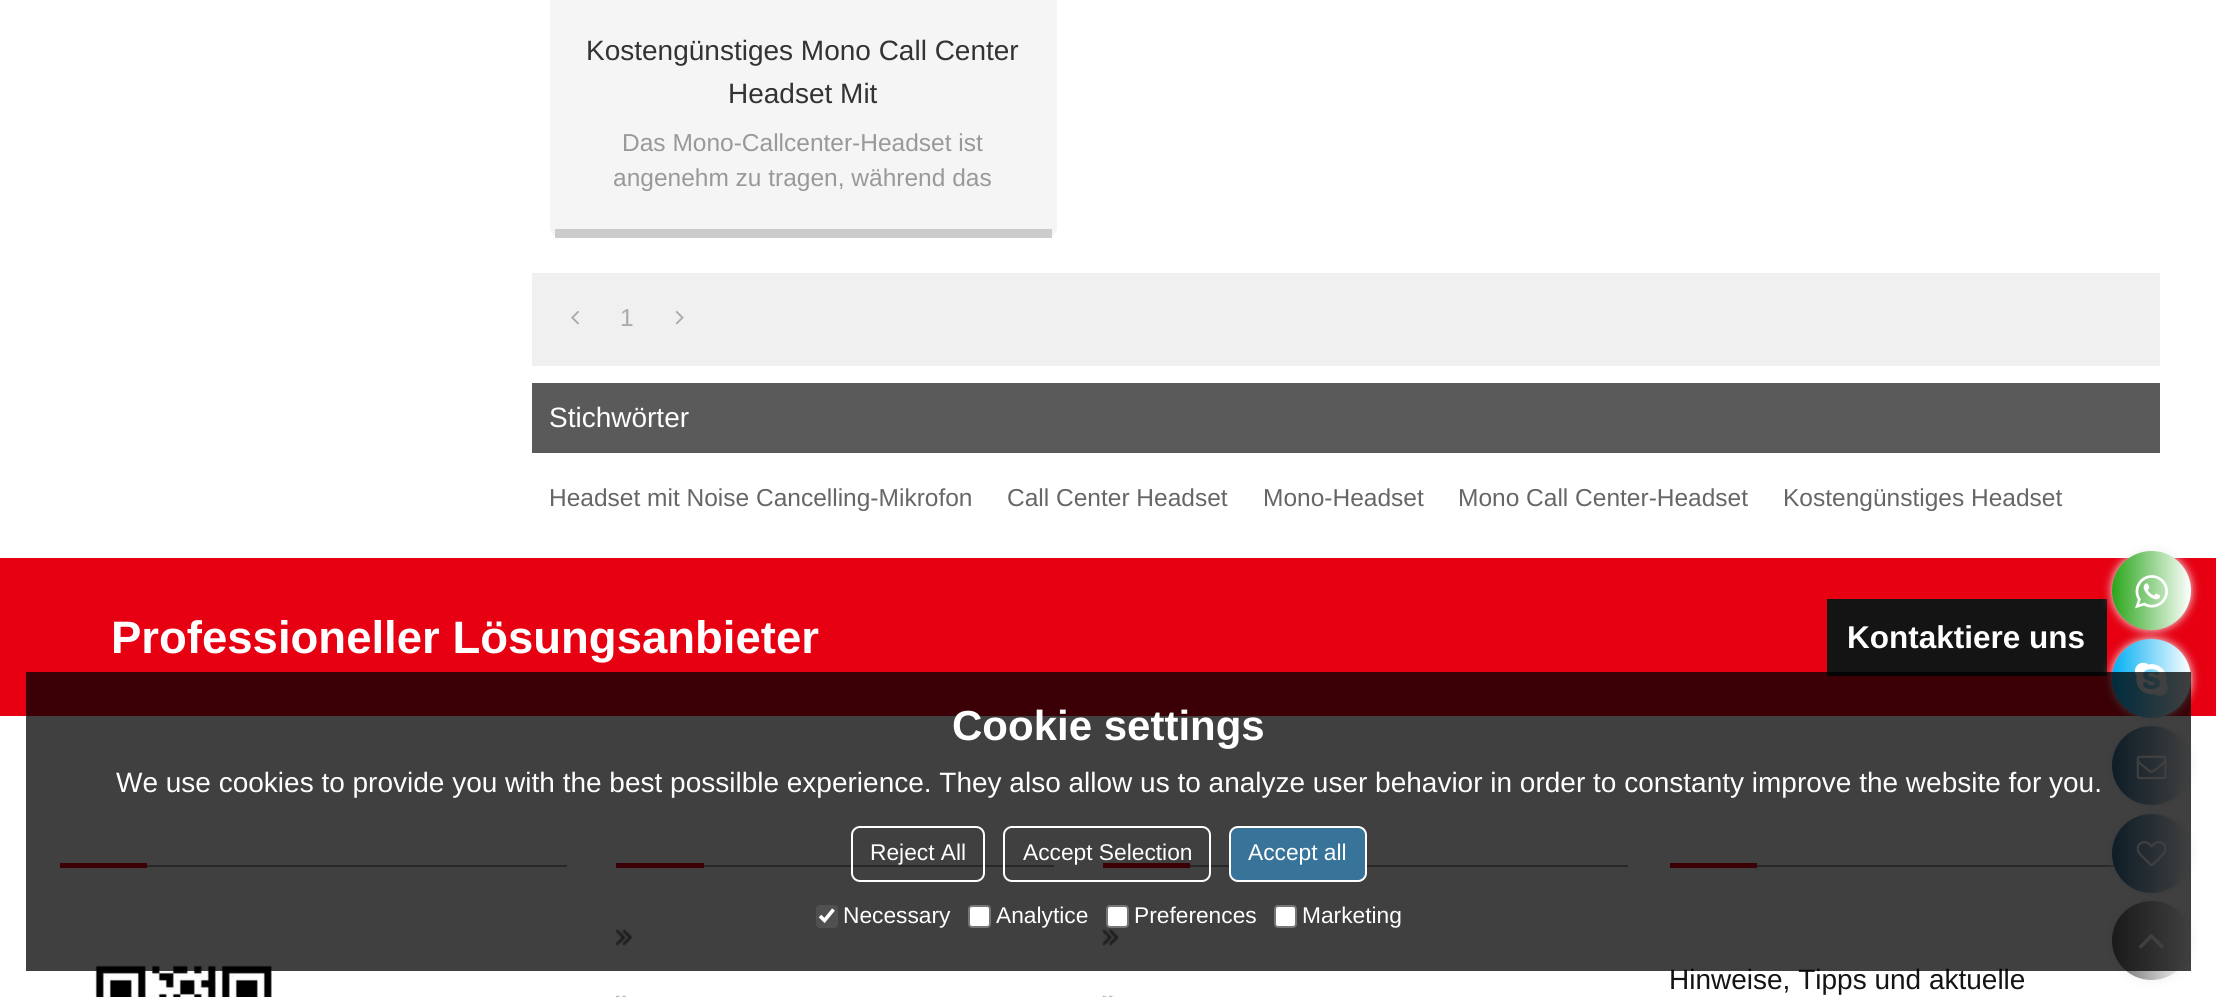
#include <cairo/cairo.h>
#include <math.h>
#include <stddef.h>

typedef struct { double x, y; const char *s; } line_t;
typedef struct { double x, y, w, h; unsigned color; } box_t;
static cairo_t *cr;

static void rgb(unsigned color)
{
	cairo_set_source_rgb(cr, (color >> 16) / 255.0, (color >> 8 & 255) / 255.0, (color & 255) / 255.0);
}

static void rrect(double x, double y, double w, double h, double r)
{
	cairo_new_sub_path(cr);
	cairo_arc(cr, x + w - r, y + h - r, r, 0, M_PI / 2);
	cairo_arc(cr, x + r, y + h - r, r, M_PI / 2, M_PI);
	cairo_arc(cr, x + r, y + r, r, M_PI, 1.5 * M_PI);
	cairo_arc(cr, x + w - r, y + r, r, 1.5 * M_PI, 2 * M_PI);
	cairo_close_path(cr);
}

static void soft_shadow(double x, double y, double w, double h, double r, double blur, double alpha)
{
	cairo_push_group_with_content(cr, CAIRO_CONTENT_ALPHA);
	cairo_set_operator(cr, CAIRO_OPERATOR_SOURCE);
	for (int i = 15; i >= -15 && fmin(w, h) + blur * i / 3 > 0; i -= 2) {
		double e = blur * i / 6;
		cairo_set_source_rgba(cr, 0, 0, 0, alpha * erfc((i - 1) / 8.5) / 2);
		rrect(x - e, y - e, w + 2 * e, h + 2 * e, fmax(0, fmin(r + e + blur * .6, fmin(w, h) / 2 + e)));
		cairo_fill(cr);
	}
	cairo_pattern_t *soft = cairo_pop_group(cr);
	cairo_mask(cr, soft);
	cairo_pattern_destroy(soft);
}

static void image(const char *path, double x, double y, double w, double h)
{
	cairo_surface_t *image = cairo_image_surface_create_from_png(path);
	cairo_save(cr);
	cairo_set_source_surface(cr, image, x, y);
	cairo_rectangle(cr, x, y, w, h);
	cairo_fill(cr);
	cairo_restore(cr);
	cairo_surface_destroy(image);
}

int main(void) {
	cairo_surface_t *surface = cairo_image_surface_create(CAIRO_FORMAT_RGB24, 2216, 997);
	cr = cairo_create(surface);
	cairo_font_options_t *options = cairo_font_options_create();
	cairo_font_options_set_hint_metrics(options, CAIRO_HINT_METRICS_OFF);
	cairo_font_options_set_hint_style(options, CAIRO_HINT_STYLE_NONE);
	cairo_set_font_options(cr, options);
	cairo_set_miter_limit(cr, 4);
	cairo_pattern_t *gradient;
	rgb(0xffffff);
	cairo_paint(cr);
	rgb(0xf5f5f5);
	rrect(550, -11, 507, 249, 11);
	cairo_fill(cr);
	rgb(0xcccccc);
	cairo_rectangle(cr, 555, 229, 497, 9);
	cairo_fill(cr);
	rgb(0xf0f0f0);
	cairo_rectangle(cr, 532, 273, 1628, 93);
	cairo_fill(cr);
	image("img/1.png", 571, 311, 8, 14);
	image("img/2.png", 675, 310, 9, 15);
	{
		static const box_t items[] = {
			{532, 383, 1628, 70, 0x5a5a5a},
			{0, 558, 2216, 158, 0xe60012},
			{1827, 599, 280, 77, 0x141414},
			{60, 863, 87, 5, 0xe60012},
			{147, 865, 420, 2, 0xa0a0a0},
		};
		for (size_t i = 0; i < sizeof items / sizeof *items; i++) {
			rgb(items[i].color);
			cairo_rectangle(cr, items[i].x, items[i].y, items[i].w, items[i].h);
			cairo_fill(cr);
		}
	}
	image("img/3.png", 95, 965, 177, 32);
	rgb(0xe60012);
	cairo_rectangle(cr, 616, 863, 88, 5);
	cairo_fill(cr);
	rgb(0xa0a0a0);
	cairo_rectangle(cr, 704, 865, 350, 2);
	cairo_fill(cr);
	image("img/4.png", 616, 929, 16, 17);
	image("img/5.png", 616, 995, 11, 2);
	rgb(0xe60012);
	cairo_rectangle(cr, 1103, 863, 87, 5);
	cairo_fill(cr);
	rgb(0xa0a0a0);
	cairo_rectangle(cr, 1190, 865, 438, 2);
	cairo_fill(cr);
	image("img/6.png", 1102, 929, 17, 17);
	image("img/7.png", 1102, 995, 12, 2);
	rgb(0xe60012);
	cairo_rectangle(cr, 1670, 863, 87, 5);
	cairo_fill(cr);
	rgb(0xa0a0a0);
	cairo_rectangle(cr, 1757, 865, 358, 2);
	cairo_fill(cr);
	rgb(0xeeeeee);
	soft_shadow(2112, 551, 79, 79, 39.5, 4.5, 1);
	gradient = cairo_pattern_create_linear(2112, 591, 2191, 591);
	cairo_pattern_add_color_stop_rgba(gradient, 0, 0.161, 0.651, 0.102, 1);
	cairo_pattern_add_color_stop_rgba(gradient, 1, 1, 1, 1, 1);
	cairo_set_source(cr, gradient);
	cairo_pattern_destroy(gradient);
	cairo_arc(cr, 2151.5, 590.5, 39.5, 0, 2 * M_PI);
	cairo_fill(cr);
	image("img/8.png", 2135, 575, 33, 34);
	rgb(0xeeeeee);
	soft_shadow(2112, 639, 79, 79, 39.5, 4.5, 1);
	gradient = cairo_pattern_create_linear(2112, 678, 2191, 678);
	cairo_pattern_add_color_stop_rgba(gradient, 0, 0.004, 0.682, 0.953, 1);
	cairo_pattern_add_color_stop_rgba(gradient, 1, 1, 1, 1, 1);
	cairo_set_source(cr, gradient);
	cairo_pattern_destroy(gradient);
	cairo_arc(cr, 2151.5, 678.5, 39.5, 0, 2 * M_PI);
	cairo_fill(cr);
	image("img/9.png", 2135, 662, 33, 34);
	rgb(0xeeeeee);
	soft_shadow(2112, 726, 79, 79, 39.5, 4.5, 1);
	gradient = cairo_pattern_create_linear(2112, 766, 2191, 766);
	cairo_pattern_add_color_stop_rgba(gradient, 0, 0.22, 0.451, 0.6, 1);
	cairo_pattern_add_color_stop_rgba(gradient, 1, 1, 1, 1, 1);
	cairo_set_source(cr, gradient);
	cairo_pattern_destroy(gradient);
	cairo_arc(cr, 2151.5, 765.5, 39.5, 0, 2 * M_PI);
	cairo_fill(cr);
	image("img/10.png", 2136, 755, 31, 25);
	rgb(0xeeeeee);
	soft_shadow(2112, 814, 79, 79, 39.5, 4.5, 1);
	gradient = cairo_pattern_create_linear(2112, 853, 2191, 853);
	cairo_pattern_add_color_stop_rgba(gradient, 0, 0.22, 0.451, 0.6, 1);
	cairo_pattern_add_color_stop_rgba(gradient, 1, 1, 1, 1, 1);
	cairo_set_source(cr, gradient);
	cairo_pattern_destroy(gradient);
	cairo_arc(cr, 2151.5, 853.5, 39.5, 0, 2 * M_PI);
	cairo_fill(cr);
	image("img/11.png", 2136, 841, 31, 26);
	rgb(0xeeeeee);
	soft_shadow(2112, 901, 79, 79, 39.5, 4.5, 1);
	gradient = cairo_pattern_create_linear(2112, 941, 2191, 941);
	cairo_pattern_add_color_stop_rgba(gradient, 0, 0.4, 0.4, 0.4, 1);
	cairo_pattern_add_color_stop_rgba(gradient, 1, 1, 1, 1, 1);
	cairo_set_source(cr, gradient);
	cairo_pattern_destroy(gradient);
	cairo_arc(cr, 2151.5, 940.5, 39.5, 0, 2 * M_PI);
	cairo_fill(cr);
	image("img/12.png", 2138, 934, 26, 15);
	cairo_select_font_face(cr, "Liberation Sans", CAIRO_FONT_SLANT_NORMAL, CAIRO_FONT_WEIGHT_NORMAL);
	cairo_set_font_size(cr, 28);
	rgb(0x333333);
	cairo_move_to(cr, 586, 60);
	cairo_show_text(cr, "Kostengünstiges Mono Call Center");
	cairo_move_to(cr, 728, 103);
	cairo_show_text(cr, "Headset Mit");
	cairo_set_font_size(cr, 24.5);
	rgb(0x999999);
	cairo_move_to(cr, 622, 151);
	cairo_show_text(cr, "Das Mono-Callcenter-Headset ist");
	cairo_move_to(cr, 613, 186);
	cairo_show_text(cr, "angenehm zu tragen, während das");
	rgb(0xaaaaaa);
	cairo_move_to(cr, 620, 326);
	cairo_show_text(cr, "1");
	cairo_set_font_size(cr, 28);
	rgb(0xffffff);
	cairo_move_to(cr, 549, 427);
	cairo_show_text(cr, "Stichwörter");
	cairo_set_font_size(cr, 24.5);
	rgb(0x666666);
	{
		static const line_t items[] = {
			{549, 506, "Headset mit Noise Cancelling-Mikrofon"},
			{1007, 506, "Call Center Headset"},
			{1263, 506, "Mono-Headset"},
			{1458, 506, "Mono Call Center-Headset"},
			{1783, 506, "Kostengünstiges Headset"},
		};
		for (size_t i = 0; i < sizeof items / sizeof *items; i++) {
			cairo_move_to(cr, items[i].x, items[i].y);
			cairo_show_text(cr, items[i].s);
		}
	}
	cairo_select_font_face(cr, "Liberation Sans", CAIRO_FONT_SLANT_NORMAL, CAIRO_FONT_WEIGHT_BOLD);
	cairo_set_font_size(cr, 45.5);
	rgb(0xffffff);
	cairo_move_to(cr, 111, 653);
	cairo_show_text(cr, "Professioneller Lösungsanbieter");
	cairo_set_font_size(cr, 31.5);
	cairo_move_to(cr, 1847, 648);
	cairo_show_text(cr, "Kontaktiere uns");
	cairo_select_font_face(cr, "Liberation Sans", CAIRO_FONT_SLANT_NORMAL, CAIRO_FONT_WEIGHT_NORMAL);
	cairo_set_font_size(cr, 28);
	rgb(0x141414);
	cairo_move_to(cr, 1669, 989);
	cairo_show_text(cr, "Hinweise, Tipps und aktuelle");
	cairo_set_source_rgba(cr, 0, 0, 0, 0.75);
	cairo_rectangle(cr, 26, 672, 2165, 299);
	cairo_fill(cr);
	cairo_select_font_face(cr, "Liberation Sans", CAIRO_FONT_SLANT_NORMAL, CAIRO_FONT_WEIGHT_BOLD);
	cairo_set_font_size(cr, 42);
	rgb(0xffffff);
	cairo_move_to(cr, 952, 740);
	cairo_show_text(cr, "Cookie settings");
	cairo_select_font_face(cr, "Liberation Sans", CAIRO_FONT_SLANT_NORMAL, CAIRO_FONT_WEIGHT_NORMAL);
	cairo_set_font_size(cr, 28);
	cairo_move_to(cr, 116, 792);
	cairo_show_text(cr, "We use cookies to provide you with the best possilble experience. They also allow us to analyze user behavior in order to constanty improve the website for you.");
	rrect(852, 827, 132, 54, 8);
	cairo_stroke(cr);
	cairo_set_font_size(cr, 22.75);
	cairo_move_to(cr, 870, 860);
	cairo_show_text(cr, "Reject All");
	rrect(1004, 827, 206, 54, 8);
	cairo_stroke(cr);
	cairo_move_to(cr, 1023, 860);
	cairo_show_text(cr, "Accept Selection");
	rgb(0x387399);
	rrect(1230, 827, 136, 54, 8);
	cairo_fill_preserve(cr);
	rgb(0xffffff);
	cairo_stroke(cr);
	cairo_move_to(cr, 1248, 860);
	cairo_show_text(cr, "Accept all");
	rgb(0x505050);
	rrect(816, 905, 22, 23, 4);
	cairo_fill(cr);
	cairo_new_path(cr);
	cairo_move_to(cr, 820, 916);
	cairo_line_to(cr, 824.5, 920.5);
	cairo_line_to(cr, 833.5, 909.5);
	rgb(0xffffff);
	cairo_set_line_width(cr, 3.6);
	cairo_stroke(cr);
	cairo_move_to(cr, 843, 923);
	cairo_show_text(cr, "Necessary");
	rrect(969, 906, 21, 21, 3);
	cairo_fill_preserve(cr);
	rgb(0x767676);
	cairo_set_line_width(cr, 2);
	cairo_stroke(cr);
	rgb(0xffffff);
	cairo_move_to(cr, 996, 923);
	cairo_show_text(cr, "Analytice");
	rrect(1107, 906, 21, 21, 3);
	cairo_fill_preserve(cr);
	rgb(0x767676);
	cairo_stroke(cr);
	rgb(0xffffff);
	cairo_move_to(cr, 1134, 923);
	cairo_show_text(cr, "Preferences");
	rrect(1275, 906, 21, 21, 3);
	cairo_fill_preserve(cr);
	rgb(0x767676);
	cairo_stroke(cr);
	rgb(0xffffff);
	cairo_move_to(cr, 1302, 923);
	cairo_show_text(cr, "Marketing");
	cairo_surface_write_to_png(surface, "page.png");
	cairo_font_options_destroy(options);
	cairo_destroy(cr);
	cairo_surface_destroy(surface);
	return 0;
}
